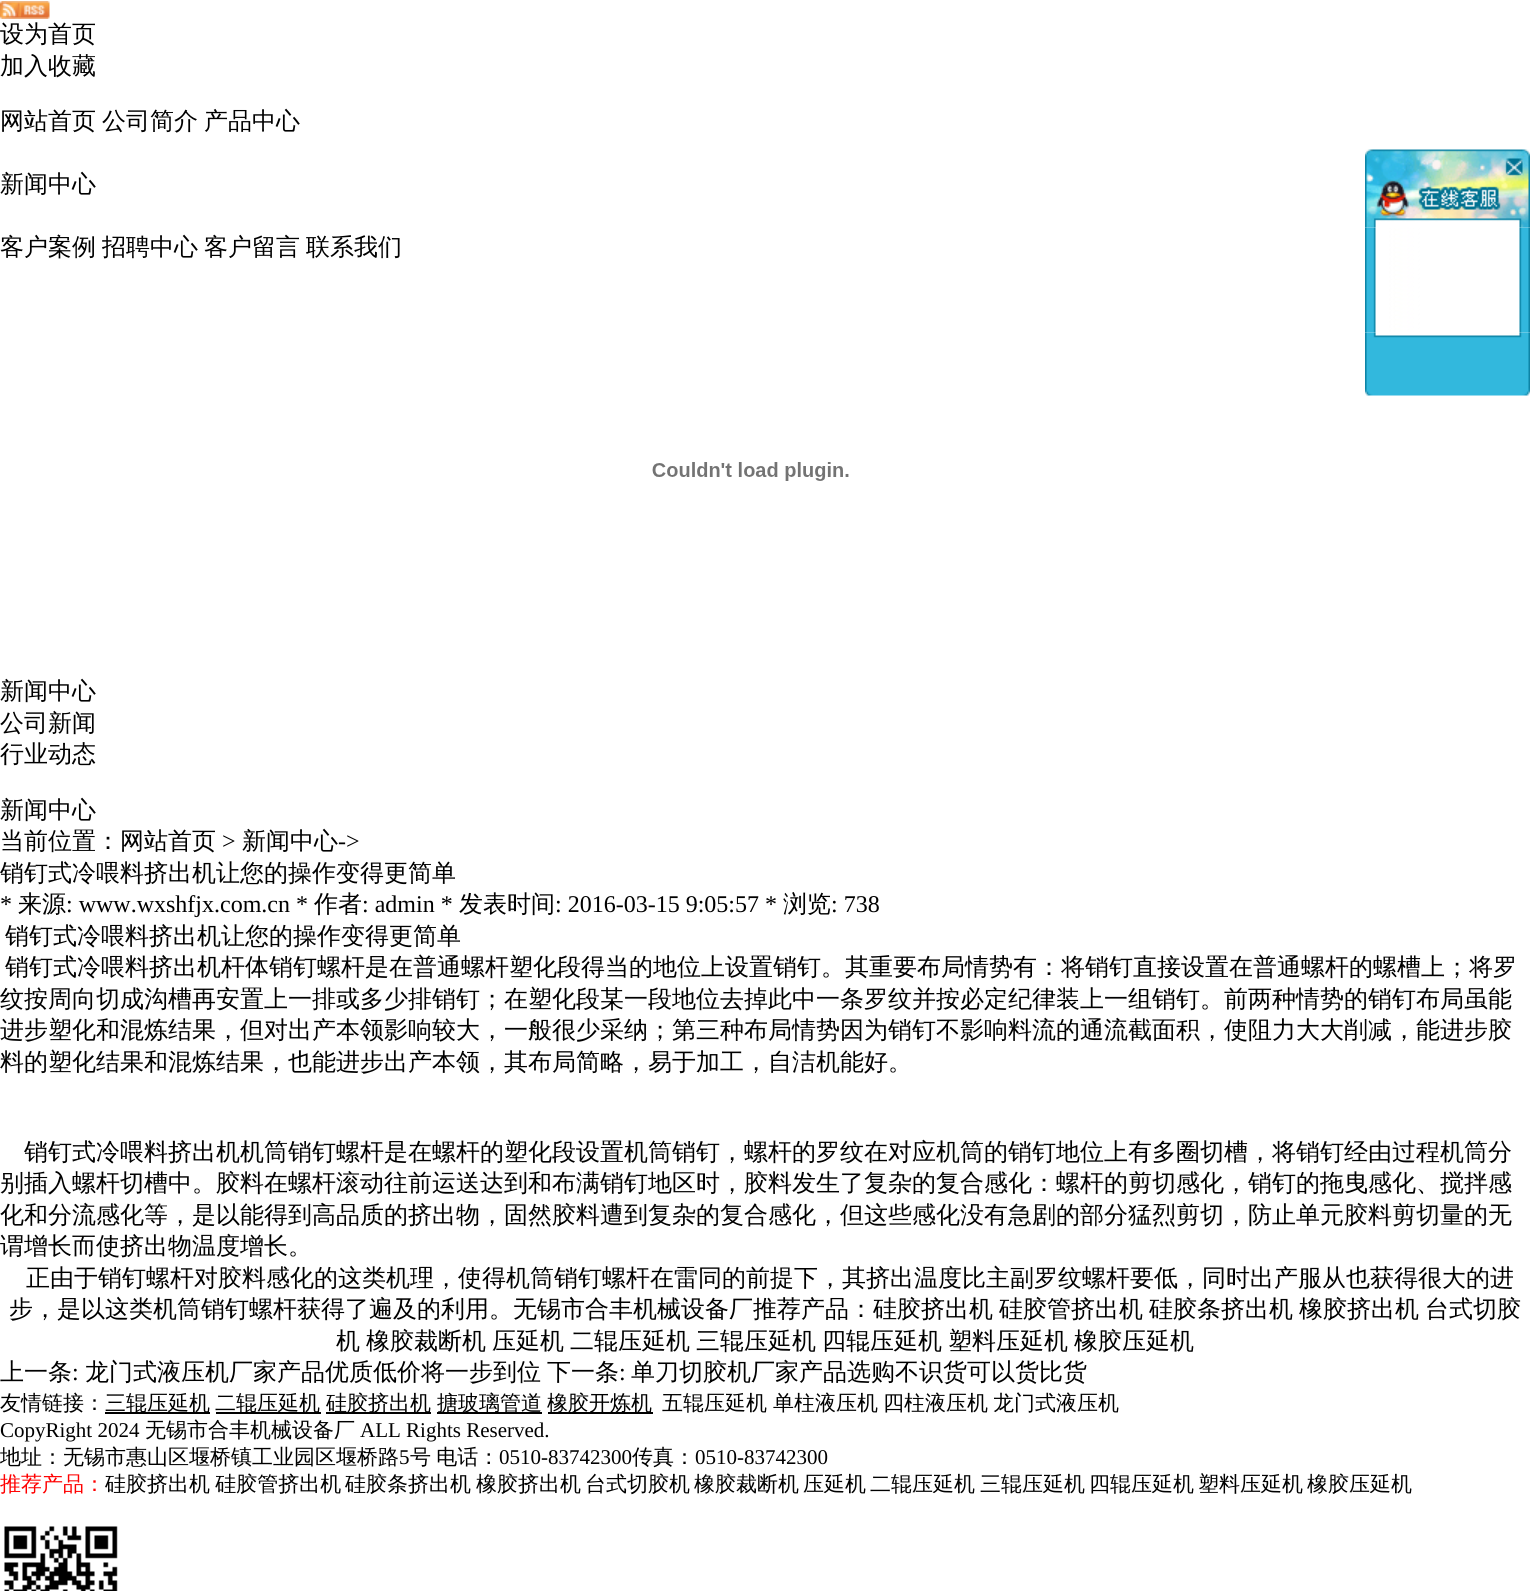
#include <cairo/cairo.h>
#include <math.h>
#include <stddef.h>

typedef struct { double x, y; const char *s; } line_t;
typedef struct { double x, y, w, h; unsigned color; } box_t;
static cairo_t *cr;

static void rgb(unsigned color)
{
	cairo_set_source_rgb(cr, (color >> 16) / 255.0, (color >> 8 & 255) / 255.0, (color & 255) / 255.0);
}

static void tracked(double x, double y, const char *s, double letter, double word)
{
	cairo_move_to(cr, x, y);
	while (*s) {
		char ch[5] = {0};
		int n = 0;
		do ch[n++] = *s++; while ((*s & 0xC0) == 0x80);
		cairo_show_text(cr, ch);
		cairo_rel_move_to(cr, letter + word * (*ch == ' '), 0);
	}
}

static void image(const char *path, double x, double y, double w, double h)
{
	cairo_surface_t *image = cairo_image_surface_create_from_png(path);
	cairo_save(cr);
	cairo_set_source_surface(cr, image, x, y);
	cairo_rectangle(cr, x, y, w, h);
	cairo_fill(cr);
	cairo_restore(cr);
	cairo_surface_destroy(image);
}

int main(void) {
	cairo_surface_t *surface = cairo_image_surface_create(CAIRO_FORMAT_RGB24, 1530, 1591);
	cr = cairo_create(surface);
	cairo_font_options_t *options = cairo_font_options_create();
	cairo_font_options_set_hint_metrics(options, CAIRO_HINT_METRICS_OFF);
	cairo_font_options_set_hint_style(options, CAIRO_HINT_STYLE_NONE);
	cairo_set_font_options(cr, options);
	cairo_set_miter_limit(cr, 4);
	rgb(0xffffff);
	cairo_paint(cr);
	image("img/1.png", 0, 1, 50, 18);
	image("img/2.png", 652, 462, 197, 19);
	image("img/3.png", 1365, 149, 165, 79);
	image("img/4.png", 1365, 227, 165, 106);
	image("img/5.png", 1365, 332, 165, 64);
	{
		static const box_t items[] = {
			{105, 1412, 105, 2, 0x000000},
			{216, 1412, 105, 2, 0x000000},
			{326, 1412, 105, 2, 0x000000},
			{437, 1412, 105, 2, 0x000000},
			{548, 1412, 105, 2, 0x000000},
		};
		for (size_t i = 0; i < sizeof items / sizeof *items; i++) {
			rgb(items[i].color);
			cairo_rectangle(cr, items[i].x, items[i].y, items[i].w, items[i].h);
			cairo_fill(cr);
		}
	}
	image("img/6.png", 4, 1526, 114, 65);
	cairo_select_font_face(cr, "WenQuanYi Zen Hei Medium", CAIRO_FONT_SLANT_NORMAL, CAIRO_FONT_WEIGHT_NORMAL);
	cairo_set_font_size(cr, 24);
	{
		static const line_t items[] = {
			{0, 42, "设为首页"},
			{0, 74, "加入收藏"},
			{0, 129, "网站首页"},
			{102, 129, "公司简介"},
			{204, 129, "产品中心"},
			{0, 192, "新闻中心"},
			{0, 255, "客户案例"},
			{102, 255, "招聘中心"},
			{204, 255, "客户留言"},
			{306, 255, "联系我们"},
			{0, 699, "新闻中心"},
			{0, 731, "公司新闻"},
			{0, 762, "行业动态"},
			{0, 818, "新闻中心"},
			{0, 849, "当前位置：网站首页"},
		};
		for (size_t i = 0; i < sizeof items / sizeof *items; i++) {
			cairo_move_to(cr, items[i].x, items[i].y);
			cairo_show_text(cr, items[i].s);
		}
	}
	cairo_select_font_face(cr, "Liberation Serif", CAIRO_FONT_SLANT_NORMAL, CAIRO_FONT_WEIGHT_NORMAL);
	cairo_move_to(cr, 222, 849);
	cairo_show_text(cr, ">");
	cairo_select_font_face(cr, "WenQuanYi Zen Hei Medium", CAIRO_FONT_SLANT_NORMAL, CAIRO_FONT_WEIGHT_NORMAL);
	cairo_move_to(cr, 242, 849);
	cairo_show_text(cr, "新闻中心");
	cairo_select_font_face(cr, "Liberation Serif", CAIRO_FONT_SLANT_NORMAL, CAIRO_FONT_WEIGHT_NORMAL);
	cairo_move_to(cr, 338, 849);
	cairo_show_text(cr, "->");
	cairo_select_font_face(cr, "WenQuanYi Zen Hei Medium", CAIRO_FONT_SLANT_NORMAL, CAIRO_FONT_WEIGHT_NORMAL);
	cairo_move_to(cr, 0, 881);
	cairo_show_text(cr, "销钉式冷喂料挤出机让您的操作变得更简单");
	cairo_select_font_face(cr, "Liberation Serif", CAIRO_FONT_SLANT_NORMAL, CAIRO_FONT_WEIGHT_NORMAL);
	cairo_move_to(cr, 0, 912);
	cairo_show_text(cr, "*");
	cairo_select_font_face(cr, "WenQuanYi Zen Hei Medium", CAIRO_FONT_SLANT_NORMAL, CAIRO_FONT_WEIGHT_NORMAL);
	cairo_move_to(cr, 18, 912);
	cairo_show_text(cr, "来源");
	cairo_select_font_face(cr, "Liberation Serif", CAIRO_FONT_SLANT_NORMAL, CAIRO_FONT_WEIGHT_NORMAL);
	cairo_move_to(cr, 66, 912);
	cairo_show_text(cr, ": www.wxshfjx.com.cn *");
	cairo_select_font_face(cr, "WenQuanYi Zen Hei Medium", CAIRO_FONT_SLANT_NORMAL, CAIRO_FONT_WEIGHT_NORMAL);
	cairo_move_to(cr, 314, 912);
	cairo_show_text(cr, "作者");
	cairo_select_font_face(cr, "Liberation Serif", CAIRO_FONT_SLANT_NORMAL, CAIRO_FONT_WEIGHT_NORMAL);
	cairo_move_to(cr, 362, 912);
	cairo_show_text(cr, ": admin *");
	cairo_select_font_face(cr, "WenQuanYi Zen Hei Medium", CAIRO_FONT_SLANT_NORMAL, CAIRO_FONT_WEIGHT_NORMAL);
	cairo_move_to(cr, 459, 912);
	cairo_show_text(cr, "发表时间");
	cairo_select_font_face(cr, "Liberation Serif", CAIRO_FONT_SLANT_NORMAL, CAIRO_FONT_WEIGHT_NORMAL);
	cairo_move_to(cr, 555, 912);
	cairo_show_text(cr, ": 2016-03-15 9:05:57 *");
	cairo_select_font_face(cr, "WenQuanYi Zen Hei Medium", CAIRO_FONT_SLANT_NORMAL, CAIRO_FONT_WEIGHT_NORMAL);
	cairo_move_to(cr, 783, 912);
	cairo_show_text(cr, "浏览");
	cairo_select_font_face(cr, "Liberation Serif", CAIRO_FONT_SLANT_NORMAL, CAIRO_FONT_WEIGHT_NORMAL);
	cairo_move_to(cr, 831, 912);
	cairo_show_text(cr, ": 738");
	cairo_select_font_face(cr, "WenQuanYi Zen Hei Medium", CAIRO_FONT_SLANT_NORMAL, CAIRO_FONT_WEIGHT_NORMAL);
	{
		static const line_t items[] = {
			{5, 944, "销钉式冷喂料挤出机让您的操作变得更简单"},
			{5, 975, "销钉式冷喂料挤出机杆体销钉螺杆是在普通螺杆塑化段得当的地位上设置销钉。其重要布局情势有：将销钉直接设置在普通螺杆的螺槽上；将罗"},
			{0, 1007, "纹按周向切成沟槽再安置上一排或多少排销钉；在塑化段某一段地位去掉此中一条罗纹并按必定纪律装上一组销钉。前两种情势的销钉布局虽能"},
			{0, 1038, "进步塑化和混炼结果，但对出产本领影响较大，一般很少采纳；第三种布局情势因为销钉不影响料流的通流截面积，使阻力大大削减，能进步胶"},
			{0, 1070, "料的塑化结果和混炼结果，也能进步出产本领，其布局简略，易于加工，自洁机能好。"},
			{24, 1160, "销钉式冷喂料挤出机机筒销钉螺杆是在螺杆的塑化段设置机筒销钉，螺杆的罗纹在对应机筒的销钉地位上有多圈切槽，将销钉经由过程机筒分"},
			{0, 1191, "别插入螺杆切槽中。胶料在螺杆滚动往前运送达到和布满销钉地区时，胶料发生了复杂的复合感化：螺杆的剪切感化，销钉的拖曳感化、搅拌感"},
			{0, 1223, "化和分流感化等，是以能得到高品质的挤出物，固然胶料遭到复杂的复合感化，但这些感化没有急剧的部分猛烈剪切，防止单元胶料剪切量的无"},
			{0, 1254, "谓增长而使挤出物温度增长。"},
			{26, 1286, "正由于销钉螺杆对胶料感化的这类机理，使得机筒销钉螺杆在雷同的前提下，其挤出温度比主副罗纹螺杆要低，同时出产服从也获得很大的进"},
			{9, 1317, "步，是以这类机筒销钉螺杆获得了遍及的利用。无锡市合丰机械设备厂推荐产品：硅胶挤出机"},
			{999, 1317, "硅胶管挤出机"},
			{1149, 1317, "硅胶条挤出机"},
			{1299, 1317, "橡胶挤出机"},
			{1425, 1317, "台式切胶"},
			{336, 1349, "机"},
			{366, 1349, "橡胶裁断机"},
			{492, 1349, "压延机"},
			{570, 1349, "二辊压延机"},
			{696, 1349, "三辊压延机"},
			{822, 1349, "四辊压延机"},
			{948, 1349, "塑料压延机"},
			{1074, 1349, "橡胶压延机"},
			{0, 1380, "上一条"},
		};
		for (size_t i = 0; i < sizeof items / sizeof *items; i++) {
			cairo_move_to(cr, items[i].x, items[i].y);
			cairo_show_text(cr, items[i].s);
		}
	}
	cairo_select_font_face(cr, "Liberation Serif", CAIRO_FONT_SLANT_NORMAL, CAIRO_FONT_WEIGHT_NORMAL);
	cairo_move_to(cr, 72, 1380);
	cairo_show_text(cr, ":");
	cairo_select_font_face(cr, "WenQuanYi Zen Hei Medium", CAIRO_FONT_SLANT_NORMAL, CAIRO_FONT_WEIGHT_NORMAL);
	cairo_move_to(cr, 85, 1380);
	cairo_show_text(cr, "龙门式液压机厂家产品优质低价将一步到位");
	cairo_move_to(cr, 547, 1380);
	cairo_show_text(cr, "下一条");
	cairo_select_font_face(cr, "Liberation Serif", CAIRO_FONT_SLANT_NORMAL, CAIRO_FONT_WEIGHT_NORMAL);
	cairo_move_to(cr, 619, 1380);
	cairo_show_text(cr, ":");
	cairo_select_font_face(cr, "WenQuanYi Zen Hei Medium", CAIRO_FONT_SLANT_NORMAL, CAIRO_FONT_WEIGHT_NORMAL);
	cairo_move_to(cr, 631, 1380);
	cairo_show_text(cr, "单刀切胶机厂家产品选购不识货可以货比货");
	cairo_set_font_size(cr, 21);
	{
		static const line_t items[] = {
			{0, 1410, "友情链接："},
			{105, 1410, "三辊压延机"},
			{215, 1410, "二辊压延机"},
			{326, 1410, "硅胶挤出机"},
			{437, 1410, "搪玻璃管道"},
			{547, 1410, "橡胶开炼机"},
			{662, 1410, "五辊压延机"},
			{773, 1410, "单柱液压机"},
			{883, 1410, "四柱液压机"},
			{993, 1410, "龙门式液压机"},
		};
		for (size_t i = 0; i < sizeof items / sizeof *items; i++) {
			cairo_move_to(cr, items[i].x, items[i].y);
			cairo_show_text(cr, items[i].s);
		}
	}
	cairo_select_font_face(cr, "Liberation Serif", CAIRO_FONT_SLANT_NORMAL, CAIRO_FONT_WEIGHT_NORMAL);
	cairo_move_to(cr, 0, 1437);
	cairo_show_text(cr, "CopyRight 2024");
	cairo_select_font_face(cr, "WenQuanYi Zen Hei Medium", CAIRO_FONT_SLANT_NORMAL, CAIRO_FONT_WEIGHT_NORMAL);
	cairo_move_to(cr, 145, 1437);
	cairo_show_text(cr, "无锡市合丰机械设备厂");
	cairo_select_font_face(cr, "Liberation Serif", CAIRO_FONT_SLANT_NORMAL, CAIRO_FONT_WEIGHT_NORMAL);
	cairo_move_to(cr, 360, 1437);
	cairo_show_text(cr, "ALL Rights Reserved.");
	cairo_select_font_face(cr, "WenQuanYi Zen Hei Medium", CAIRO_FONT_SLANT_NORMAL, CAIRO_FONT_WEIGHT_NORMAL);
	cairo_move_to(cr, 0, 1464);
	cairo_show_text(cr, "地址：无锡市惠山区堰桥镇工业园区堰桥路");
	cairo_select_font_face(cr, "Liberation Serif", CAIRO_FONT_SLANT_NORMAL, CAIRO_FONT_WEIGHT_NORMAL);
	cairo_move_to(cr, 399, 1464);
	cairo_show_text(cr, "5");
	cairo_select_font_face(cr, "WenQuanYi Zen Hei Medium", CAIRO_FONT_SLANT_NORMAL, CAIRO_FONT_WEIGHT_NORMAL);
	tracked(410, 1464, "号 电话：", 0, -1);
	cairo_select_font_face(cr, "Liberation Serif", CAIRO_FONT_SLANT_NORMAL, CAIRO_FONT_WEIGHT_NORMAL);
	cairo_move_to(cr, 499, 1464);
	cairo_show_text(cr, "0510-83742300");
	cairo_select_font_face(cr, "WenQuanYi Zen Hei Medium", CAIRO_FONT_SLANT_NORMAL, CAIRO_FONT_WEIGHT_NORMAL);
	cairo_move_to(cr, 632, 1464);
	cairo_show_text(cr, "传真：");
	cairo_select_font_face(cr, "Liberation Serif", CAIRO_FONT_SLANT_NORMAL, CAIRO_FONT_WEIGHT_NORMAL);
	cairo_move_to(cr, 695, 1464);
	cairo_show_text(cr, "0510-83742300");
	cairo_select_font_face(cr, "WenQuanYi Zen Hei Medium", CAIRO_FONT_SLANT_NORMAL, CAIRO_FONT_WEIGHT_NORMAL);
	rgb(0xff0000);
	cairo_move_to(cr, 0, 1491);
	cairo_show_text(cr, "推荐产品：");
	rgb(0x000000);
	tracked(105, 1491, "硅胶挤出机 硅胶管挤出机", 0, -1);
	{
		static const line_t items[] = {
			{345, 1491, "硅胶条挤出机"},
			{476, 1491, "橡胶挤出机"},
			{585, 1491, "台式切胶机"},
			{694, 1491, "橡胶裁断机"},
			{803, 1491, "压延机"},
			{870, 1491, "二辊压延机"},
			{980, 1491, "三辊压延机"},
			{1089, 1491, "四辊压延机"},
			{1198, 1491, "塑料压延机"},
			{1307, 1491, "橡胶压延机"},
		};
		for (size_t i = 0; i < sizeof items / sizeof *items; i++) {
			cairo_move_to(cr, items[i].x, items[i].y);
			cairo_show_text(cr, items[i].s);
		}
	}
	cairo_surface_write_to_png(surface, "page.png");
	cairo_font_options_destroy(options);
	cairo_destroy(cr);
	cairo_surface_destroy(surface);
	return 0;
}
